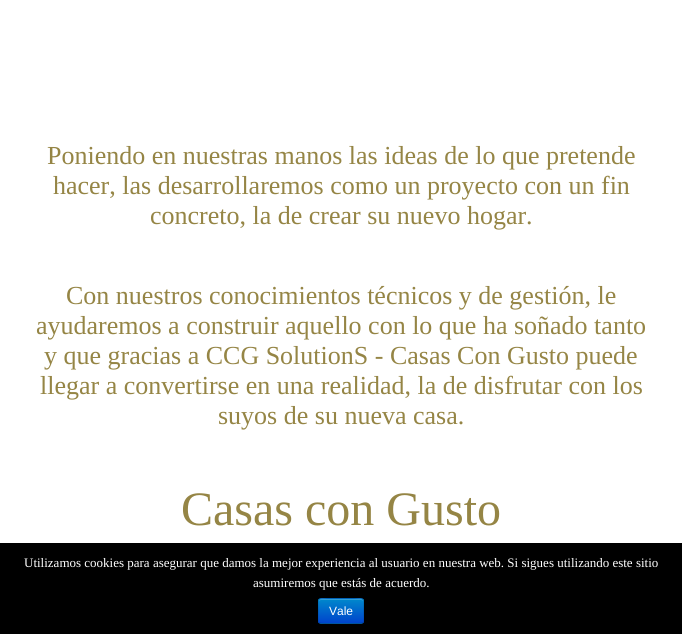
#include <cairo/cairo.h>
#include <math.h>
#include <stddef.h>

typedef struct { double x, y; const char *s; } line_t;
static cairo_t *cr;

static void rgb(unsigned color)
{
	cairo_set_source_rgb(cr, (color >> 16) / 255.0, (color >> 8 & 255) / 255.0, (color & 255) / 255.0);
}

static void rrect(double x, double y, double w, double h, double r)
{
	cairo_new_sub_path(cr);
	cairo_arc(cr, x + w - r, y + h - r, r, 0, M_PI / 2);
	cairo_arc(cr, x + r, y + h - r, r, M_PI / 2, M_PI);
	cairo_arc(cr, x + r, y + r, r, M_PI, 1.5 * M_PI);
	cairo_arc(cr, x + w - r, y + r, r, 1.5 * M_PI, 2 * M_PI);
	cairo_close_path(cr);
}

int main(void) {
	cairo_surface_t *surface = cairo_image_surface_create(CAIRO_FORMAT_RGB24, 682, 634);
	cr = cairo_create(surface);
	cairo_font_options_t *options = cairo_font_options_create();
	cairo_font_options_set_hint_metrics(options, CAIRO_HINT_METRICS_OFF);
	cairo_font_options_set_hint_style(options, CAIRO_HINT_STYLE_NONE);
	cairo_set_font_options(cr, options);
	cairo_set_miter_limit(cr, 4);
	cairo_pattern_t *gradient;
	rgb(0xffffff);
	cairo_paint(cr);
	rgb(0x000000);
	cairo_rectangle(cr, 0, 543, 682, 91);
	cairo_fill(cr);
	rgb(0x006dcc);
	rrect(318, 598, 46, 26, 3);
	cairo_fill(cr);
	cairo_save(cr);
	rrect(318, 598, 46, 26, 3);
	cairo_clip(cr);
	gradient = cairo_pattern_create_linear(341, 599, 341, 623);
	cairo_pattern_add_color_stop_rgba(gradient, 0, 0, 0.533, 0.8, 1);
	cairo_pattern_add_color_stop_rgba(gradient, 1, 0, 0.267, 0.8, 1);
	cairo_set_source(cr, gradient);
	cairo_pattern_destroy(gradient);
	cairo_rectangle(cr, 318, 599, 46, 24);
	cairo_fill(cr);
	cairo_restore(cr);
	cairo_set_source_rgba(cr, 1, 1, 1, 0.2);
	cairo_new_path(cr);
	cairo_move_to(cr, 321, 600);
	cairo_line_to(cr, 361, 600);
	cairo_curve_to(cr, 362, 600, 363, 601, 363, 602);
	cairo_curve_to(cr, 363, 597, 358, 599, 354, 599);
	cairo_line_to(cr, 328, 599);
	cairo_curve_to(cr, 324, 599, 319, 597, 319, 602);
	cairo_curve_to(cr, 319, 601, 320, 600, 321, 600);
	cairo_close_path(cr);
	cairo_fill(cr);
	cairo_new_path(cr);
	cairo_move_to(cr, 363, 623);
	cairo_curve_to(cr, 361.5, 624, 320.5, 624, 319, 623);
	cairo_set_source_rgba(cr, 0, 0, 0, 0.25);
	cairo_set_line_width(cr, 1);
	cairo_stroke(cr);
	cairo_new_path(cr);
	cairo_move_to(cr, 319, 623);
	cairo_curve_to(cr, 317.5, 621, 318.5, 613.5, 318.5, 611);
	cairo_curve_to(cr, 318.5, 598, 316, 598.5, 327.5, 598.5);
	cairo_line_to(cr, 354.5, 598.5);
	cairo_curve_to(cr, 366, 598.5, 363.5, 598, 363.5, 611);
	cairo_curve_to(cr, 363.5, 613.5, 364.5, 621, 363, 623);
	cairo_set_source_rgba(cr, 0, 0, 0, 0.1);
	cairo_stroke(cr);
	cairo_select_font_face(cr, "Liberation Serif", CAIRO_FONT_SLANT_NORMAL, CAIRO_FONT_WEIGHT_NORMAL);
	cairo_set_font_size(cr, 26);
	rgb(0x958545);
	{
		static const line_t items[] = {
			{47, 164, "Poniendo en nuestras manos las ideas de lo que pretende"},
			{53, 194, "hacer, las desarrollaremos como un proyecto con un fin"},
			{150, 224, "concreto, la de crear su nuevo hogar."},
			{66, 304, "Con nuestros conocimientos técnicos y de gestión, le"},
			{36, 334, "ayudaremos a construir aquello con lo que ha soñado tanto"},
			{44, 364, "y que gracias a CCG SolutionS - Casas Con Gusto puede"},
			{40, 394, "llegar a convertirse en una realidad, la de disfrutar con los"},
			{218, 424, "suyos de su nueva casa."},
		};
		for (size_t i = 0; i < sizeof items / sizeof *items; i++) {
			cairo_move_to(cr, items[i].x, items[i].y);
			cairo_show_text(cr, items[i].s);
		}
	}
	cairo_set_font_size(cr, 48);
	cairo_move_to(cr, 181, 525);
	cairo_show_text(cr, "Casas con Gusto");
	cairo_set_font_size(cr, 13);
	rgb(0xffffff);
	cairo_move_to(cr, 24, 567);
	cairo_show_text(cr, "Utilizamos cookies para asegurar que damos la mejor experiencia al usuario en nuestra web. Si sigues utilizando este sitio");
	cairo_move_to(cr, 253, 587);
	cairo_show_text(cr, "asumiremos que estás de acuerdo.");
	cairo_select_font_face(cr, "Liberation Sans", CAIRO_FONT_SLANT_NORMAL, CAIRO_FONT_WEIGHT_NORMAL);
	cairo_set_font_size(cr, 12);
	cairo_move_to(cr, 329, 615);
	cairo_show_text(cr, "Vale");
	cairo_surface_write_to_png(surface, "page.png");
	cairo_font_options_destroy(options);
	cairo_destroy(cr);
	cairo_surface_destroy(surface);
	return 0;
}
